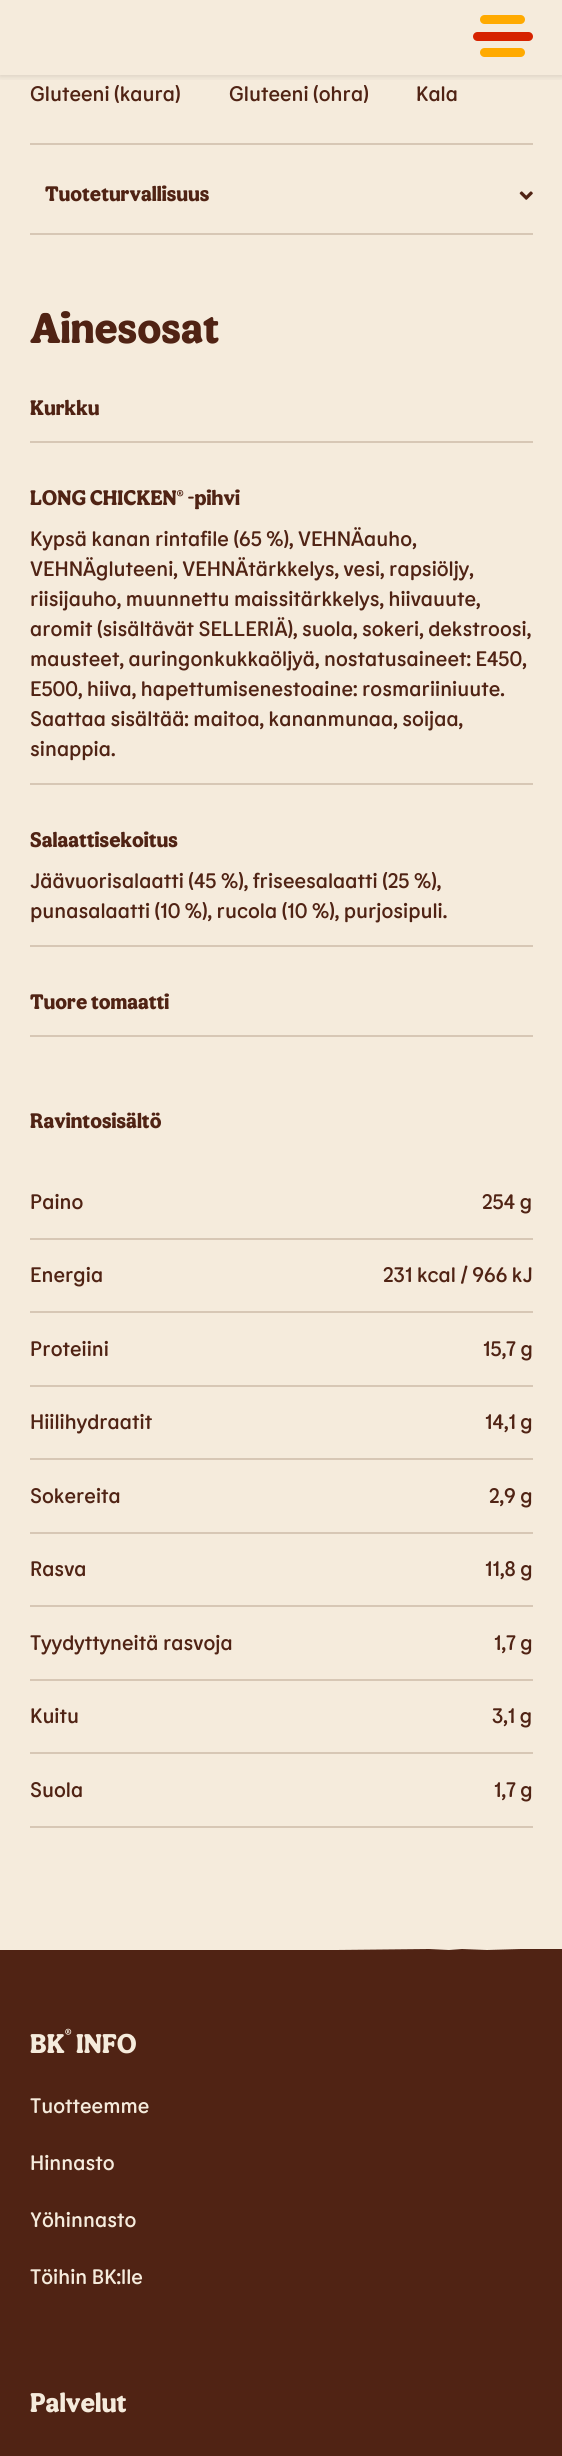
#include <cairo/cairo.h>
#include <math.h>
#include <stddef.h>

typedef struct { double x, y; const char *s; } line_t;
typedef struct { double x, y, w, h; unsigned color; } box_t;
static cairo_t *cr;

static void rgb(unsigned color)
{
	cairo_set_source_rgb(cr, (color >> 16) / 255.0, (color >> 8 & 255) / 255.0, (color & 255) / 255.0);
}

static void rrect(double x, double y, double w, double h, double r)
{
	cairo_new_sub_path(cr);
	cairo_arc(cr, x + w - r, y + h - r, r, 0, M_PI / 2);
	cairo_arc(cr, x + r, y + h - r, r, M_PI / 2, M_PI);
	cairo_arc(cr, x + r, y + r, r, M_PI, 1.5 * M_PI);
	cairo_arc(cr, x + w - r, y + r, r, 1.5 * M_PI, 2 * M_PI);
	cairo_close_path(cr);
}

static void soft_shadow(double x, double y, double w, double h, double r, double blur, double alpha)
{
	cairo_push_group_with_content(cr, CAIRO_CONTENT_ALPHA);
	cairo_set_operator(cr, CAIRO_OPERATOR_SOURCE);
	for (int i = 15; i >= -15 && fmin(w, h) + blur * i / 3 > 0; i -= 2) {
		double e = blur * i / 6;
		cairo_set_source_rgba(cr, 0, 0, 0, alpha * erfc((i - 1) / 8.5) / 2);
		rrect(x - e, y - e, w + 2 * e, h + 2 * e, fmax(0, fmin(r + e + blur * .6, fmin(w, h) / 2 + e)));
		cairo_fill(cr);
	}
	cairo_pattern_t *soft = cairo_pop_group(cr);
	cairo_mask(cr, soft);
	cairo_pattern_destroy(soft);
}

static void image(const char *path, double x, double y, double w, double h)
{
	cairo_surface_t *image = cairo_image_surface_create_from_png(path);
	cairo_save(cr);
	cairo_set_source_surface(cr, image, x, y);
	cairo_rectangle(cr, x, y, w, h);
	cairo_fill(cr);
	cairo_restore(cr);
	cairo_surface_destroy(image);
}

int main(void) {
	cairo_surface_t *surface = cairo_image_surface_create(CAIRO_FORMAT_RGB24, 562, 2456);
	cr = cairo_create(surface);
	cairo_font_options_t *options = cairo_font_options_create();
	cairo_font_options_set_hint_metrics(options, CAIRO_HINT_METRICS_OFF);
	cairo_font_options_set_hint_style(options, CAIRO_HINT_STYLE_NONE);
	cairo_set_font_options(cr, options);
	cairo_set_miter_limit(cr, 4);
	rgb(0xf5ebdc);
	cairo_paint(cr);
	cairo_save(cr);
	cairo_rectangle(cr, 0, 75, 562, 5);
	cairo_clip(cr);
	rgb(0x000000);
	soft_shadow(0, 0, 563, 75, 0, 4, 0.16);
	cairo_restore(cr);
	rgb(0xd62300);
	rrect(473, 32, 60, 9, 4.5);
	cairo_fill(cr);
	rgb(0xffaa00);
	rrect(480, 15, 45, 9, 4.5);
	cairo_fill(cr);
	rrect(480, 48, 45, 9, 4.5);
	cairo_fill(cr);
	rgb(0xd7c7b5);
	cairo_rectangle(cr, 30, 143, 503, 2);
	cairo_fill(cr);
	cairo_rectangle(cr, 30, 233, 503, 2);
	cairo_fill(cr);
	image("img/1.png", 519, 191, 14, 9);
	{
		static const box_t items[] = {
			{30, 441, 503, 2, 0xd7c7b5},
			{30, 783, 503, 2, 0xd7c7b5},
			{30, 945, 503, 2, 0xd7c7b5},
			{30, 1035, 503, 2, 0xd7c7b5},
			{30, 1238, 503, 2, 0xd7c7b5},
			{30, 1311, 503, 2, 0xd7c7b5},
			{30, 1385, 503, 2, 0xd7c7b5},
			{30, 1458, 503, 2, 0xd7c7b5},
			{30, 1532, 503, 2, 0xd7c7b5},
			{30, 1605, 503, 2, 0xd7c7b5},
			{30, 1679, 503, 2, 0xd7c7b5},
			{30, 1752, 503, 2, 0xd7c7b5},
			{30, 1826, 503, 2, 0xd7c7b5},
			{0, 1950, 562, 506, 0x502314},
		};
		for (size_t i = 0; i < sizeof items / sizeof *items; i++) {
			rgb(items[i].color);
			cairo_rectangle(cr, items[i].x, items[i].y, items[i].w, items[i].h);
			cairo_fill(cr);
		}
	}
	cairo_save(cr);
	cairo_rectangle(cr, 0, 1949, 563, 5);
	cairo_clip(cr);
	cairo_set_fill_rule(cr, CAIRO_FILL_RULE_EVEN_ODD);
	cairo_new_path(cr);
	cairo_move_to(cr, 1, 1953);
	cairo_line_to(cr, 1, 1952);
	cairo_line_to(cr, 80, 1951);
	cairo_line_to(cr, 92, 1952);
	cairo_line_to(cr, 99, 1951);
	cairo_line_to(cr, 115, 1952);
	cairo_line_to(cr, 135, 1951);
	cairo_line_to(cr, 174, 1951);
	cairo_line_to(cr, 208, 1950);
	cairo_line_to(cr, 246, 1951);
	cairo_line_to(cr, 330, 1950);
	cairo_line_to(cr, 336, 1950);
	cairo_line_to(cr, 429, 1949);
	cairo_line_to(cr, 449, 1950);
	cairo_line_to(cr, 462, 1949);
	cairo_line_to(cr, 487, 1950);
	cairo_line_to(cr, 521, 1949);
	cairo_line_to(cr, 543, 1949);
	cairo_line_to(cr, 553, 1948);
	cairo_line_to(cr, 562, 1948);
	cairo_line_to(cr, 562, 1953);
	cairo_close_path(cr);
	cairo_fill(cr);
	cairo_restore(cr);
	cairo_select_font_face(cr, "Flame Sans", CAIRO_FONT_SLANT_NORMAL, CAIRO_FONT_WEIGHT_NORMAL);
	cairo_set_font_size(cr, 21);
	{
		static const line_t items[] = {
			{30, 101, "Gluteeni (kaura)"},
			{229, 101, "Gluteeni (ohra)"},
			{416, 101, "Kala"},
		};
		for (size_t i = 0; i < sizeof items / sizeof *items; i++) {
			cairo_move_to(cr, items[i].x, items[i].y);
			cairo_show_text(cr, items[i].s);
		}
	}
	cairo_select_font_face(cr, "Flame", CAIRO_FONT_SLANT_NORMAL, CAIRO_FONT_WEIGHT_NORMAL);
	cairo_move_to(cr, 45, 201);
	cairo_show_text(cr, "Tuoteturvallisuus");
	cairo_set_font_size(cr, 43);
	cairo_move_to(cr, 30, 343);
	cairo_show_text(cr, "Ainesosat");
	cairo_set_font_size(cr, 21);
	cairo_move_to(cr, 30, 415);
	cairo_show_text(cr, "Kurkku");
	cairo_move_to(cr, 30, 505);
	cairo_show_text(cr, "LONG CHICKEN® -pihvi");
	cairo_select_font_face(cr, "Flame Sans", CAIRO_FONT_SLANT_NORMAL, CAIRO_FONT_WEIGHT_NORMAL);
	{
		static const line_t items[] = {
			{30, 546, "Kypsä kanan rintafile (65 %), VEHNÄauho,"},
			{30, 576, "VEHNÄgluteeni, VEHNÄtärkkelys, vesi, rapsiöljy,"},
			{30, 606, "riisijauho, muunnettu maissitärkkelys, hiivauute,"},
			{30, 636, "aromit (sisältävät SELLERIÄ), suola, sokeri, dekstroosi,"},
			{30, 666, "mausteet, auringonkukkaöljyä, nostatusaineet: E450,"},
			{30, 696, "E500, hiiva, hapettumisenestoaine: rosmariiniuute."},
			{30, 726, "Saattaa sisältää: maitoa, kananmunaa, soijaa,"},
			{30, 756, "sinappia."},
		};
		for (size_t i = 0; i < sizeof items / sizeof *items; i++) {
			cairo_move_to(cr, items[i].x, items[i].y);
			cairo_show_text(cr, items[i].s);
		}
	}
	cairo_select_font_face(cr, "Flame", CAIRO_FONT_SLANT_NORMAL, CAIRO_FONT_WEIGHT_NORMAL);
	cairo_move_to(cr, 30, 847);
	cairo_show_text(cr, "Salaattisekoitus");
	cairo_select_font_face(cr, "Flame Sans", CAIRO_FONT_SLANT_NORMAL, CAIRO_FONT_WEIGHT_NORMAL);
	cairo_move_to(cr, 30, 888);
	cairo_show_text(cr, "Jäävuorisalaatti (45 %), friseesalaatti (25 %),");
	cairo_move_to(cr, 30, 918);
	cairo_show_text(cr, "punasalaatti (10 %), rucola (10 %), purjosipuli.");
	cairo_select_font_face(cr, "Flame", CAIRO_FONT_SLANT_NORMAL, CAIRO_FONT_WEIGHT_NORMAL);
	cairo_move_to(cr, 30, 1009);
	cairo_show_text(cr, "Tuore tomaatti");
	cairo_move_to(cr, 30, 1128);
	cairo_show_text(cr, "Ravintosisältö");
	cairo_select_font_face(cr, "Flame Sans", CAIRO_FONT_SLANT_NORMAL, CAIRO_FONT_WEIGHT_NORMAL);
	{
		static const line_t items[] = {
			{30, 1209, "Paino"},
			{482, 1209, "254 g"},
			{30, 1282, "Energia"},
			{383, 1282, "231 kcal / 966 kJ"},
			{30, 1356, "Proteiini"},
			{483, 1356, "15,7 g"},
			{30, 1429, "Hiilihydraatit"},
			{485, 1429, "14,1 g"},
			{30, 1503, "Sokereita"},
			{489, 1503, "2,9 g"},
			{30, 1576, "Rasva"},
			{485, 1576, "11,8 g"},
			{30, 1650, "Tyydyttyneitä rasvoja"},
			{494, 1650, "1,7 g"},
			{30, 1723, "Kuitu"},
			{492, 1723, "3,1 g"},
			{30, 1797, "Suola"},
			{494, 1797, "1,7 g"},
		};
		for (size_t i = 0; i < sizeof items / sizeof *items; i++) {
			cairo_move_to(cr, items[i].x, items[i].y);
			cairo_show_text(cr, items[i].s);
		}
	}
	cairo_select_font_face(cr, "Flame", CAIRO_FONT_SLANT_NORMAL, CAIRO_FONT_WEIGHT_NORMAL);
	cairo_set_font_size(cr, 20);
	rgb(0xf5ebdc);
	cairo_move_to(cr, 65, 2043);
	cairo_show_text(cr, "®");
	cairo_set_font_size(cr, 27);
	cairo_move_to(cr, 30, 2053);
	cairo_show_text(cr, "BK");
	cairo_move_to(cr, 76, 2053);
	cairo_show_text(cr, "INFO");
	cairo_select_font_face(cr, "Flame Sans", CAIRO_FONT_SLANT_NORMAL, CAIRO_FONT_WEIGHT_NORMAL);
	cairo_set_font_size(cr, 21);
	{
		static const line_t items[] = {
			{30, 2113, "Tuotteemme"},
			{30, 2170, "Hinnasto"},
			{30, 2227, "Yöhinnasto"},
			{30, 2284, "Töihin BK:lle"},
		};
		for (size_t i = 0; i < sizeof items / sizeof *items; i++) {
			cairo_move_to(cr, items[i].x, items[i].y);
			cairo_show_text(cr, items[i].s);
		}
	}
	cairo_select_font_face(cr, "Flame", CAIRO_FONT_SLANT_NORMAL, CAIRO_FONT_WEIGHT_NORMAL);
	cairo_set_font_size(cr, 27);
	cairo_move_to(cr, 30, 2412);
	cairo_show_text(cr, "Palvelut");
	cairo_surface_write_to_png(surface, "page.png");
	cairo_font_options_destroy(options);
	cairo_destroy(cr);
	cairo_surface_destroy(surface);
	return 0;
}
